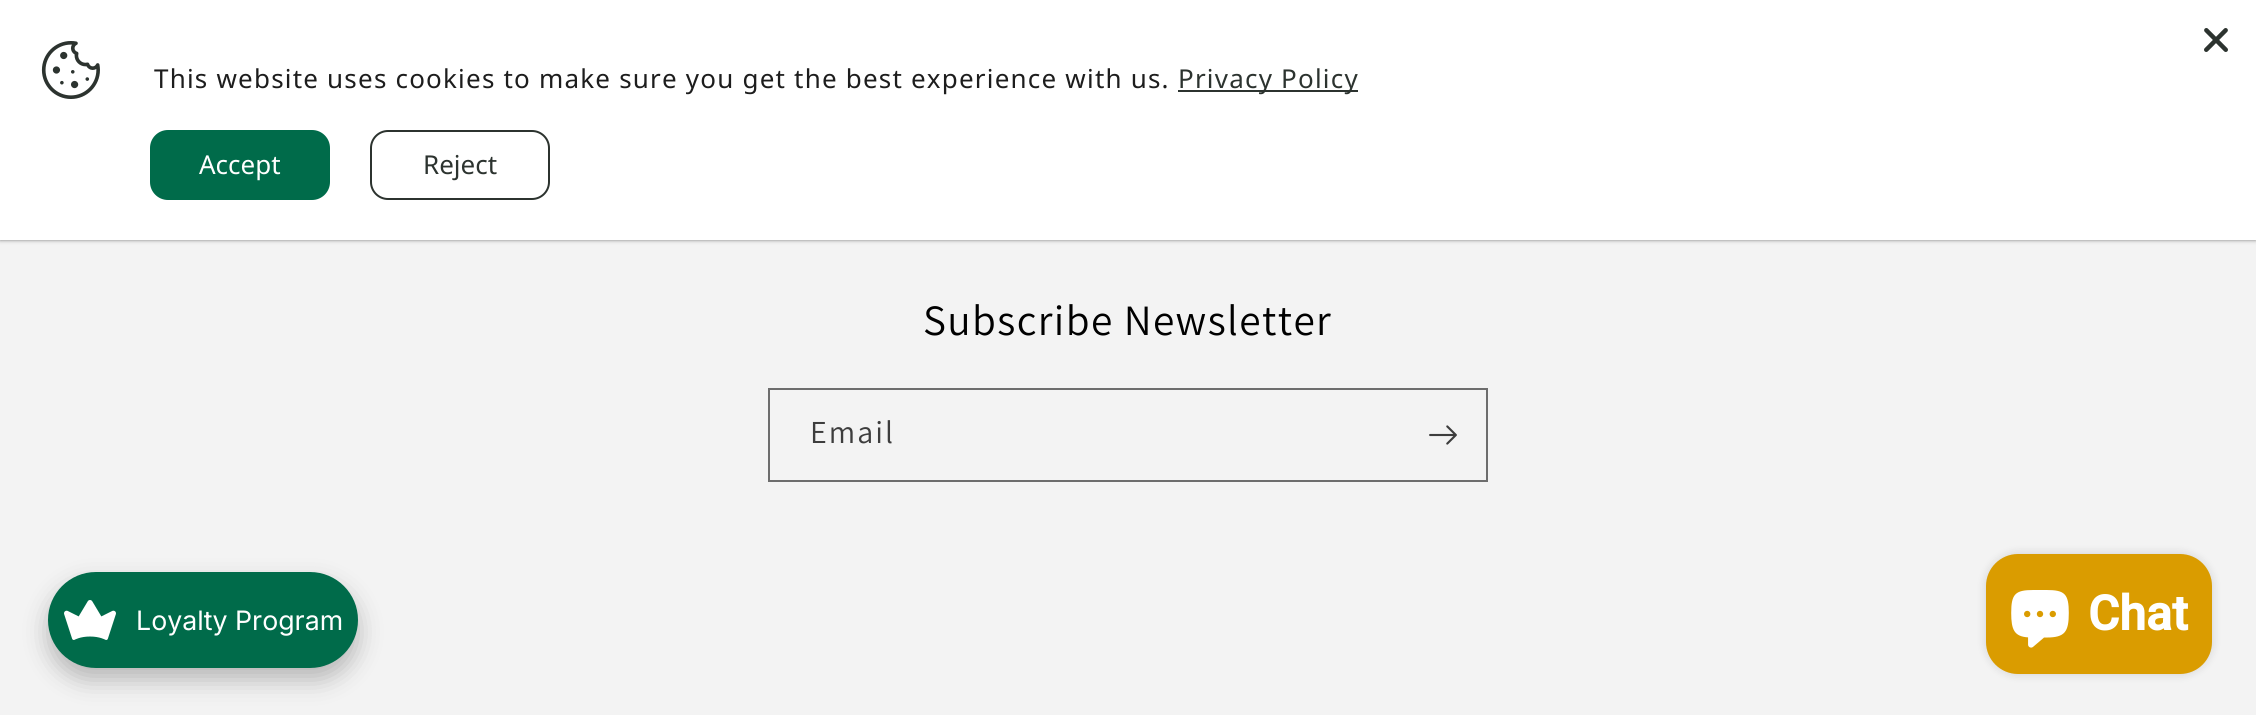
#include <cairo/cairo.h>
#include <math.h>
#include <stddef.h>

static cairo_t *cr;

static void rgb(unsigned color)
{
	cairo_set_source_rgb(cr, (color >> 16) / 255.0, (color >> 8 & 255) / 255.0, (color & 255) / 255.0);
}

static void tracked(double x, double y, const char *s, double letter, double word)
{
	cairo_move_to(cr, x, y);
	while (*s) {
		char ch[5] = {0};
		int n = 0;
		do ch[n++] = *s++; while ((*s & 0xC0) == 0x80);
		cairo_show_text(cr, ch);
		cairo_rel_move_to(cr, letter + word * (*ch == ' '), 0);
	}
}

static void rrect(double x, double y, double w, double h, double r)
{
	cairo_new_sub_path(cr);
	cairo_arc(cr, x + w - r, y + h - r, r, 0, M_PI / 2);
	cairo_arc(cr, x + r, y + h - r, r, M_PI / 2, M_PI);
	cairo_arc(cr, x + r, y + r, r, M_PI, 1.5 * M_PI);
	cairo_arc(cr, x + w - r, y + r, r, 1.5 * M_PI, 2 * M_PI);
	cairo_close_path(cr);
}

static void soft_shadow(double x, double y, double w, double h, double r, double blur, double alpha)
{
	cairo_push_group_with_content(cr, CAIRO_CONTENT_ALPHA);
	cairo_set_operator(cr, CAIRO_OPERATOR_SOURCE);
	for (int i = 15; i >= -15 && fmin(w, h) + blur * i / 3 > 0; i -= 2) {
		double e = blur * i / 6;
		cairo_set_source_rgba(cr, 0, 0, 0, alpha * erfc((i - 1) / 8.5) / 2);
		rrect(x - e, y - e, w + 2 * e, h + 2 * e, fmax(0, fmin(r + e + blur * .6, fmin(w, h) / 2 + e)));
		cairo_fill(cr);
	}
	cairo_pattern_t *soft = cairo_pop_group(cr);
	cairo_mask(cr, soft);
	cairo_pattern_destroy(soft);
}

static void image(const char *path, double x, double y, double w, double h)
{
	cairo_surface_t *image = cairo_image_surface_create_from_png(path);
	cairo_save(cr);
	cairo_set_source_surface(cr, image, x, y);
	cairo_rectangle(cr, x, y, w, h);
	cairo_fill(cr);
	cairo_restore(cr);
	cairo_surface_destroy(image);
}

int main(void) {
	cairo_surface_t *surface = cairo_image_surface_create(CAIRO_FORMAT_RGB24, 2256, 715);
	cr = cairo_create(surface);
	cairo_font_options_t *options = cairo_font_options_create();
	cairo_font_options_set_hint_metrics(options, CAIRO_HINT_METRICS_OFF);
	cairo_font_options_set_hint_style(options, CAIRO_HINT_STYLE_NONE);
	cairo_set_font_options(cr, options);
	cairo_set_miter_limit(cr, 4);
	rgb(0xf3f3f3);
	cairo_paint(cr);
	rgb(0x000000);
	soft_shadow(0, 0, 2256, 240, 0, 2, 0.5);
	rgb(0xffffff);
	cairo_rectangle(cr, 0, 0, 2256, 240);
	cairo_fill(cr);
	image("img/1.png", 2204, 28, 24, 24);
	image("img/2.png", 41, 41, 59, 58);
	rgb(0x2c332f);
	cairo_rectangle(cr, 1178, 90, 180, 2);
	cairo_fill(cr);
	rgb(0x006b4a);
	rrect(150, 130, 180, 70, 18);
	cairo_fill(cr);
	rrect(371, 131, 178, 68, 17);
	rgb(0x2c332f);
	cairo_stroke(cr);
	cairo_rectangle(cr, 769, 389, 718, 92);
	rgb(0x6d6d6d);
	cairo_stroke(cr);
	image("img/3.png", 1429, 425, 28, 20);
	rgb(0x000000);
	soft_shadow(48, 584, 310, 96, 48, 12, 0.25);
	rgb(0x006b4a);
	rrect(48, 572, 310, 96, 48);
	cairo_fill(cr);
	image("img/4.png", 64, 600, 52, 40);
	rgb(0x000000);
	soft_shadow(1986, 554, 226, 120, 32, 5, 0.15);
	rgb(0xda9c00);
	rrect(1986, 554, 226, 120, 32);
	cairo_fill(cr);
	image("img/5.png", 2011, 590, 58, 58);
	cairo_select_font_face(cr, "Noto Sans", CAIRO_FONT_SLANT_NORMAL, CAIRO_FONT_WEIGHT_NORMAL);
	cairo_set_font_size(cr, 26);
	rgb(0x1d1d1d);
	tracked(154, 88, "This website uses cookies to make sure you get the best experience with us.", 1.2, 0);
	rgb(0x2c332f);
	tracked(1178, 88, "Privacy Policy", 1.2, 0);
	rgb(0xffffff);
	cairo_move_to(cr, 199, 174);
	cairo_show_text(cr, "Accept");
	rgb(0x2c332f);
	cairo_move_to(cr, 423, 174);
	cairo_show_text(cr, "Reject");
	cairo_select_font_face(cr, "Assistant", CAIRO_FONT_SLANT_NORMAL, CAIRO_FONT_WEIGHT_NORMAL);
	cairo_set_font_size(cr, 43.25);
	rgb(0x000000);
	tracked(923, 335, "Subscribe Newsletter", 1.4, 0);
	cairo_set_font_size(cr, 32);
	rgb(0x3d3d3d);
	tracked(810, 443, "Email", 2, 0);
	cairo_select_font_face(cr, "Inter", CAIRO_FONT_SLANT_NORMAL, CAIRO_FONT_WEIGHT_NORMAL);
	cairo_set_font_size(cr, 26.75);
	rgb(0xffffff);
	cairo_move_to(cr, 136, 630);
	cairo_show_text(cr, "Loyalty Program");
	cairo_select_font_face(cr, "Roboto", CAIRO_FONT_SLANT_NORMAL, CAIRO_FONT_WEIGHT_BOLD);
	cairo_set_font_size(cr, 48);
	cairo_move_to(cr, 2088, 630);
	cairo_show_text(cr, "Chat");
	cairo_surface_write_to_png(surface, "page.png");
	cairo_font_options_destroy(options);
	cairo_destroy(cr);
	cairo_surface_destroy(surface);
	return 0;
}
